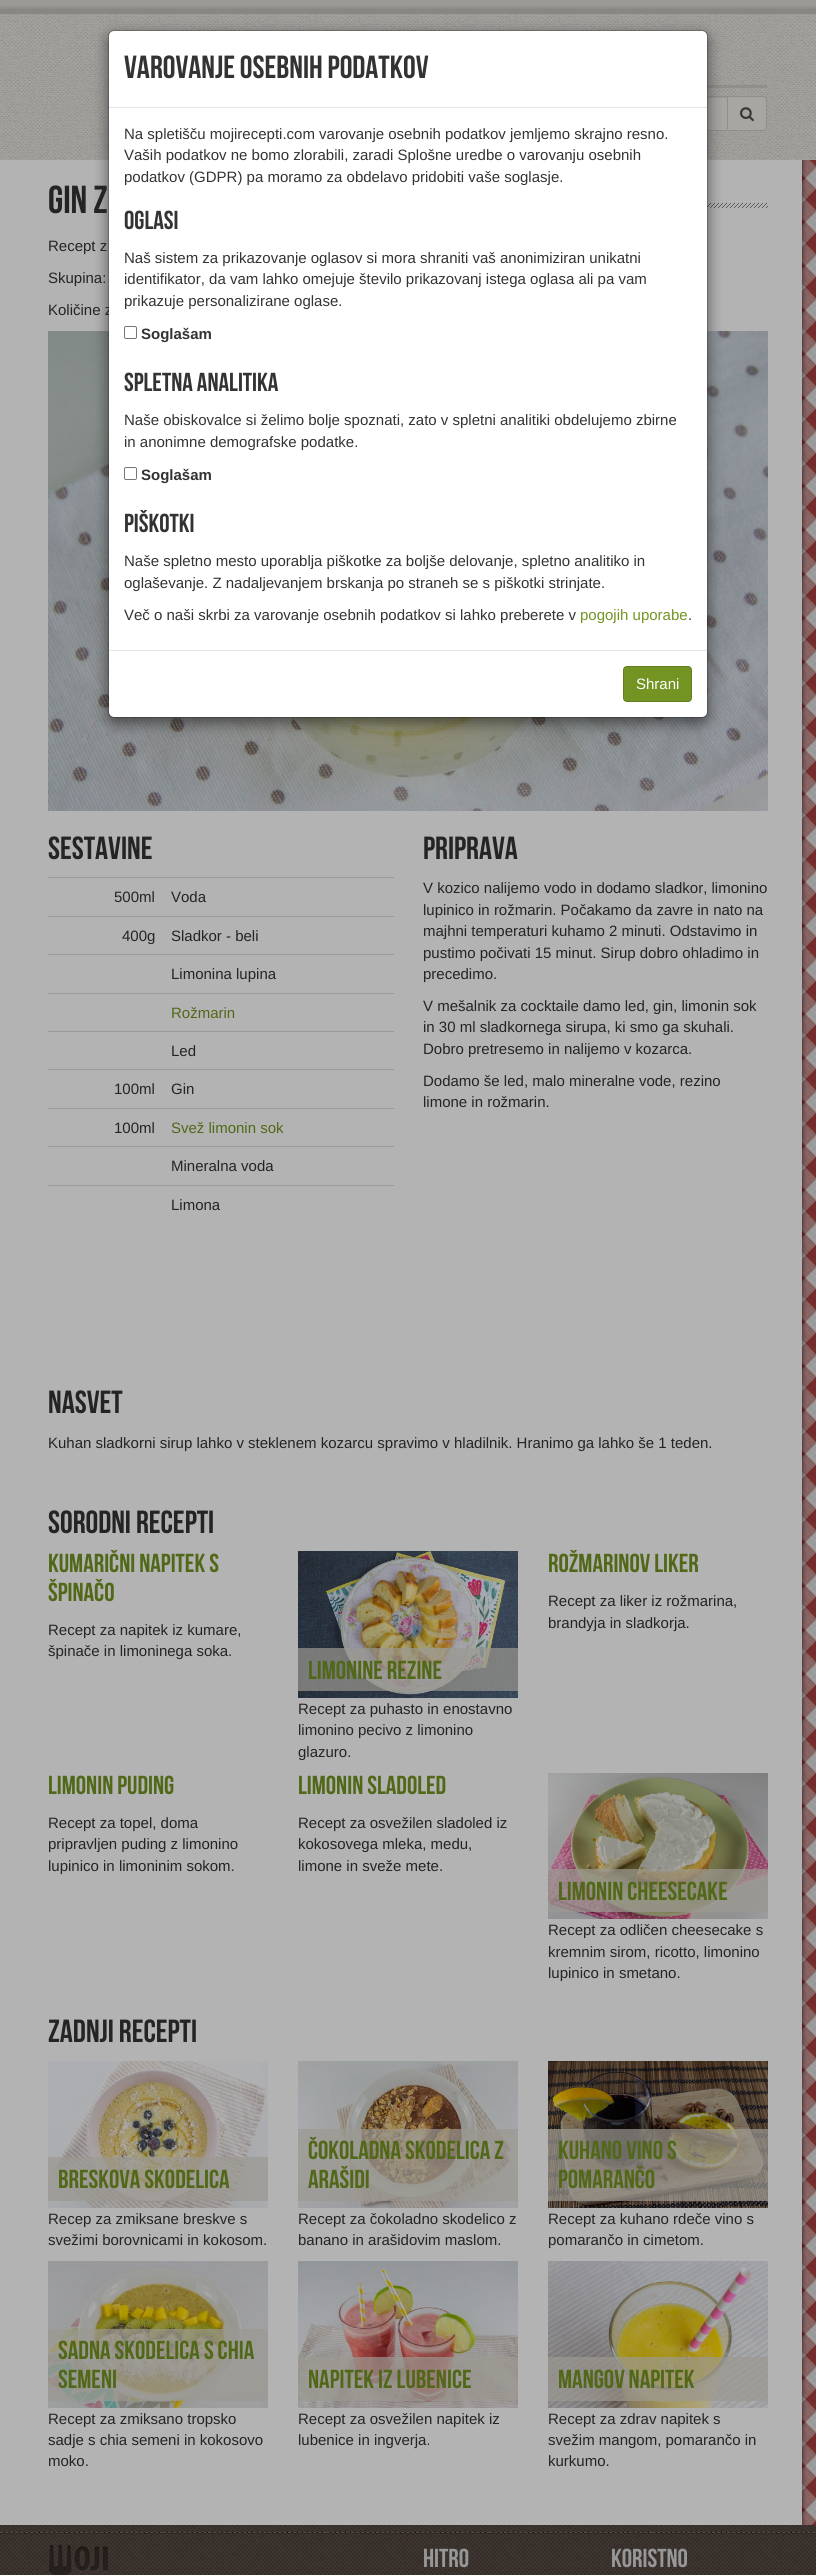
#include <cairo/cairo.h>
#include <math.h>
#include <stddef.h>

typedef struct { double x, y; const char *s; } line_t;
typedef struct { double x, y, w, h; unsigned color; } box_t;
static cairo_t *cr;

static void rgb(unsigned color)
{
	cairo_set_source_rgb(cr, (color >> 16) / 255.0, (color >> 8 & 255) / 255.0, (color & 255) / 255.0);
}

static void rrect(double x, double y, double w, double h, double r)
{
	cairo_new_sub_path(cr);
	cairo_arc(cr, x + w - r, y + h - r, r, 0, M_PI / 2);
	cairo_arc(cr, x + r, y + h - r, r, M_PI / 2, M_PI);
	cairo_arc(cr, x + r, y + r, r, M_PI, 1.5 * M_PI);
	cairo_arc(cr, x + w - r, y + r, r, 1.5 * M_PI, 2 * M_PI);
	cairo_close_path(cr);
}

static void soft_shadow(double x, double y, double w, double h, double r, double blur, double alpha)
{
	cairo_push_group_with_content(cr, CAIRO_CONTENT_ALPHA);
	cairo_set_operator(cr, CAIRO_OPERATOR_SOURCE);
	for (int i = 15; i >= -15 && fmin(w, h) + blur * i / 3 > 0; i -= 2) {
		double e = blur * i / 6;
		cairo_set_source_rgba(cr, 0, 0, 0, alpha * erfc((i - 1) / 8.5) / 2);
		rrect(x - e, y - e, w + 2 * e, h + 2 * e, fmax(0, fmin(r + e + blur * .6, fmin(w, h) / 2 + e)));
		cairo_fill(cr);
	}
	cairo_pattern_t *soft = cairo_pop_group(cr);
	cairo_mask(cr, soft);
	cairo_pattern_destroy(soft);
}

static void image(const char *path, double x, double y, double w, double h)
{
	cairo_surface_t *image = cairo_image_surface_create_from_png(path);
	cairo_save(cr);
	cairo_set_source_surface(cr, image, x, y);
	cairo_rectangle(cr, x, y, w, h);
	cairo_fill(cr);
	cairo_restore(cr);
	cairo_surface_destroy(image);
}

int main(void) {
	cairo_surface_t *surface = cairo_image_surface_create(CAIRO_FORMAT_RGB24, 816, 2575);
	cr = cairo_create(surface);
	cairo_font_options_t *options = cairo_font_options_create();
	cairo_font_options_set_hint_metrics(options, CAIRO_HINT_METRICS_OFF);
	cairo_font_options_set_hint_style(options, CAIRO_HINT_STYLE_NONE);
	cairo_set_font_options(cr, options);
	cairo_set_miter_limit(cr, 4);
	rgb(0xffffff);
	cairo_paint(cr);
	image("img/1.png", 0, 14, 816, 146);
	image("img/2.png", 0, 0, 816, 14);
	rgb(0x928f8b);
	cairo_rectangle(cr, 707, 85, 60, 3);
	cairo_fill(cr);
	rgb(0xa8a6a2);
	cairo_rectangle(cr, 707, 98, 20, 32);
	cairo_fill(cr);
	rgb(0x9b9996);
	cairo_new_path(cr);
	cairo_move_to(cr, 601, 98);
	cairo_line_to(cr, 727, 98);
	cairo_line_to(cr, 727, 97);
	cairo_line_to(cr, 601, 97);
	cairo_curve_to(cr, 599, 97, 598, 99, 598, 101);
	cairo_curve_to(cr, 598, 99, 599, 98, 601, 98);
	cairo_close_path(cr);
	cairo_fill(cr);
	cairo_rectangle(cr, 597.5, 96.5, 130, 34);
	rgb(0x928f8b);
	cairo_set_line_width(cr, 1);
	cairo_stroke(cr);
	rgb(0xa8a6a2);
	cairo_new_path(cr);
	cairo_move_to(cr, 727.5, 96.5);
	cairo_line_to(cr, 763, 96.5);
	cairo_curve_to(cr, 765, 96.5, 766.5, 98, 766.5, 100);
	cairo_line_to(cr, 766.5, 127);
	cairo_curve_to(cr, 766.5, 129, 765, 130.5, 763, 130.5);
	cairo_line_to(cr, 727.5, 130.5);
	cairo_close_path(cr);
	cairo_fill_preserve(cr);
	rgb(0x928f8b);
	cairo_stroke(cr);
	image("img/3.png", 740, 107, 14, 15);
	rgb(0xb3b3b3);
	cairo_rectangle(cr, 0, 160, 802, 2365);
	cairo_fill(cr);
	image("img/5.png", 707, 203, 61, 5);
	image("img/6.png", 48, 331, 720, 480);
	rgb(0x000000);
	soft_shadow(108, 35, 600, 688, 6, 7.5, 0.5);
	image("img/4.png", 802, 160, 14, 2365);
	{
		static const box_t items[] = {
			{48, 877, 346, 1, 0x9b9b9b},
			{48, 916, 346, 1, 0x9b9b9b},
			{48, 954, 346, 1, 0x9b9b9b},
			{48, 993, 346, 1, 0x9b9b9b},
			{48, 1031, 346, 1, 0x9b9b9b},
			{48, 1069, 346, 1, 0x9b9b9b},
			{48, 1108, 346, 1, 0x9b9b9b},
			{48, 1146, 346, 1, 0x9b9b9b},
			{48, 1185, 346, 1, 0x9b9b9b},
		};
		for (size_t i = 0; i < sizeof items / sizeof *items; i++) {
			rgb(items[i].color);
			cairo_rectangle(cr, items[i].x, items[i].y, items[i].w, items[i].h);
			cairo_fill(cr);
		}
	}
	image("img/7.png", 298, 1551, 220, 147);
	cairo_set_source_rgba(cr, 0.612, 0.6, 0.573, 0.7);
	cairo_rectangle(cr, 298, 1648, 220, 43);
	cairo_fill(cr);
	image("img/8.png", 548, 1773, 220, 146);
	cairo_rectangle(cr, 548, 1869, 220, 43);
	cairo_fill(cr);
	image("img/9.png", 48, 2061, 220, 147);
	cairo_rectangle(cr, 48, 2157, 220, 44);
	cairo_fill(cr);
	image("img/10.png", 298, 2061, 220, 147);
	cairo_rectangle(cr, 298, 2129, 220, 72);
	cairo_fill(cr);
	image("img/11.png", 548, 2061, 220, 147);
	cairo_rectangle(cr, 548, 2129, 220, 72);
	cairo_fill(cr);
	image("img/12.png", 48, 2261, 220, 147);
	cairo_rectangle(cr, 48, 2329, 220, 72);
	cairo_fill(cr);
	image("img/13.png", 298, 2261, 220, 147);
	cairo_rectangle(cr, 298, 2357, 220, 44);
	cairo_fill(cr);
	image("img/14.png", 548, 2261, 220, 147);
	cairo_rectangle(cr, 548, 2357, 220, 44);
	cairo_fill(cr);
	image("img/15.png", 0, 2525, 816, 50);
	image("img/16.png", 49, 2545, 59, 30);
	cairo_select_font_face(cr, "Bebas Neue", CAIRO_FONT_SLANT_NORMAL, CAIRO_FONT_WEIGHT_NORMAL);
	cairo_set_font_size(cr, 39);
	rgb(0x242424);
	cairo_move_to(cr, 48, 213);
	cairo_show_text(cr, "Gin z");
	cairo_select_font_face(cr, "Liberation Sans", CAIRO_FONT_SLANT_NORMAL, CAIRO_FONT_WEIGHT_NORMAL);
	cairo_set_font_size(cr, 15);
	{
		static const line_t items[] = {
			{48, 251, "Recept z"},
			{48, 283, "Skupina:"},
			{48, 315, "Količine z"},
		};
		for (size_t i = 0; i < sizeof items / sizeof *items; i++) {
			cairo_move_to(cr, items[i].x, items[i].y);
			cairo_show_text(cr, items[i].s);
		}
	}
	rgb(0xffffff);
	rrect(109, 31, 598, 686, 5);
	cairo_fill(cr);
	rrect(108.5, 30.5, 599, 687, 5.5);
	cairo_set_source_rgba(cr, 0, 0, 0, 0.2);
	cairo_stroke(cr);
	rgb(0x333333);
	cairo_move_to(cr, 688, 620);
	cairo_show_text(cr, ".");
	rgb(0x739422);
	cairo_move_to(cr, 580, 620);
	cairo_show_text(cr, "pogojih uporabe");
	rgb(0x333333);
	{
		static const line_t items[] = {
			{124, 620, "Več o naši skrbi za varovanje osebnih podatkov si lahko preberete v"},
			{124, 588, "oglaševanje. Z nadaljevanjem brskanja po straneh se s piškotki strinjate."},
			{124, 566, "Naše spletno mesto uporablja piškotke za boljše delovanje, spletno analitiko in"},
		};
		for (size_t i = 0; i < sizeof items / sizeof *items; i++) {
			cairo_move_to(cr, items[i].x, items[i].y);
			cairo_show_text(cr, items[i].s);
		}
	}
	cairo_select_font_face(cr, "Bebas Neue", CAIRO_FONT_SLANT_NORMAL, CAIRO_FONT_WEIGHT_NORMAL);
	cairo_set_font_size(cr, 26);
	cairo_move_to(cr, 124, 532);
	cairo_show_text(cr, "Piškotki");
	cairo_select_font_face(cr, "Liberation Sans", CAIRO_FONT_SLANT_NORMAL, CAIRO_FONT_WEIGHT_BOLD);
	cairo_set_font_size(cr, 15);
	cairo_move_to(cr, 141, 480);
	cairo_show_text(cr, "Soglašam");
	rrect(124.5, 467.5, 12, 12, 1.5);
	rgb(0x767676);
	cairo_stroke(cr);
	cairo_select_font_face(cr, "Liberation Sans", CAIRO_FONT_SLANT_NORMAL, CAIRO_FONT_WEIGHT_NORMAL);
	rgb(0x333333);
	cairo_move_to(cr, 124, 447);
	cairo_show_text(cr, "in anonimne demografske podatke.");
	cairo_move_to(cr, 124, 425);
	cairo_show_text(cr, "Naše obiskovalce si želimo bolje spoznati, zato v spletni analitiki obdelujemo zbirne");
	cairo_select_font_face(cr, "Bebas Neue", CAIRO_FONT_SLANT_NORMAL, CAIRO_FONT_WEIGHT_NORMAL);
	cairo_set_font_size(cr, 26);
	cairo_move_to(cr, 124, 391);
	cairo_show_text(cr, "Spletna analitika");
	cairo_select_font_face(cr, "Liberation Sans", CAIRO_FONT_SLANT_NORMAL, CAIRO_FONT_WEIGHT_BOLD);
	cairo_set_font_size(cr, 15);
	cairo_move_to(cr, 141, 339);
	cairo_show_text(cr, "Soglašam");
	rrect(124.5, 326.5, 12, 12, 1.5);
	rgb(0x767676);
	cairo_stroke(cr);
	cairo_select_font_face(cr, "Liberation Sans", CAIRO_FONT_SLANT_NORMAL, CAIRO_FONT_WEIGHT_NORMAL);
	rgb(0x333333);
	{
		static const line_t items[] = {
			{124, 306, "prikazuje personalizirane oglase."},
			{124, 284, "identifikator, da vam lahko omejuje število prikazovanj istega oglasa ali pa vam"},
			{124, 263, "Naš sistem za prikazovanje oglasov si mora shraniti vaš anonimiziran unikatni"},
		};
		for (size_t i = 0; i < sizeof items / sizeof *items; i++) {
			cairo_move_to(cr, items[i].x, items[i].y);
			cairo_show_text(cr, items[i].s);
		}
	}
	cairo_select_font_face(cr, "Bebas Neue", CAIRO_FONT_SLANT_NORMAL, CAIRO_FONT_WEIGHT_NORMAL);
	cairo_set_font_size(cr, 26);
	cairo_move_to(cr, 124, 229);
	cairo_show_text(cr, "Oglasi");
	cairo_select_font_face(cr, "Liberation Sans", CAIRO_FONT_SLANT_NORMAL, CAIRO_FONT_WEIGHT_NORMAL);
	cairo_set_font_size(cr, 15);
	{
		static const line_t items[] = {
			{124, 182, "podatkov (GDPR) pa moramo za obdelavo pridobiti vaše soglasje."},
			{124, 160, "Vaših podatkov ne bomo zlorabili, zaradi Splošne uredbe o varovanju osebnih"},
			{124, 139, "Na spletišču mojirecepti.com varovanje osebnih podatkov jemljemo skrajno resno."},
		};
		for (size_t i = 0; i < sizeof items / sizeof *items; i++) {
			cairo_move_to(cr, items[i].x, items[i].y);
			cairo_show_text(cr, items[i].s);
		}
	}
	rgb(0x739422);
	rrect(623.5, 666.5, 68, 35, 3.5);
	cairo_fill_preserve(cr);
	rgb(0x637f1d);
	cairo_stroke(cr);
	rgb(0xffffff);
	cairo_move_to(cr, 636, 689);
	cairo_show_text(cr, "Shrani");
	cairo_select_font_face(cr, "Bebas Neue", CAIRO_FONT_SLANT_NORMAL, CAIRO_FONT_WEIGHT_NORMAL);
	cairo_set_font_size(cr, 32);
	rgb(0x333333);
	cairo_move_to(cr, 124, 78);
	cairo_show_text(cr, "Varovanje osebnih podatkov");
	rgb(0xe5e5e5);
	cairo_rectangle(cr, 109, 650, 598, 1);
	cairo_fill(cr);
	cairo_rectangle(cr, 109, 107, 598, 1);
	cairo_fill(cr);
	rgb(0x242424);
	cairo_move_to(cr, 48, 859);
	cairo_show_text(cr, "Sestavine");
	cairo_select_font_face(cr, "Liberation Sans", CAIRO_FONT_SLANT_NORMAL, CAIRO_FONT_WEIGHT_NORMAL);
	cairo_set_font_size(cr, 15);
	{
		static const line_t items[] = {
			{114, 902, "500ml"},
			{171, 902, "Voda"},
			{122, 941, "400g"},
			{171, 941, "Sladkor - beli"},
			{171, 979, "Limonina lupina"},
		};
		for (size_t i = 0; i < sizeof items / sizeof *items; i++) {
			cairo_move_to(cr, items[i].x, items[i].y);
			cairo_show_text(cr, items[i].s);
		}
	}
	rgb(0x516818);
	cairo_move_to(cr, 171, 1018);
	cairo_show_text(cr, "Rožmarin");
	rgb(0x242424);
	{
		static const line_t items[] = {
			{171, 1056, "Led"},
			{114, 1094, "100ml"},
			{171, 1094, "Gin"},
			{114, 1133, "100ml"},
		};
		for (size_t i = 0; i < sizeof items / sizeof *items; i++) {
			cairo_move_to(cr, items[i].x, items[i].y);
			cairo_show_text(cr, items[i].s);
		}
	}
	rgb(0x516818);
	cairo_move_to(cr, 171, 1133);
	cairo_show_text(cr, "Svež limonin sok");
	rgb(0x242424);
	cairo_move_to(cr, 171, 1171);
	cairo_show_text(cr, "Mineralna voda");
	cairo_move_to(cr, 171, 1210);
	cairo_show_text(cr, "Limona");
	cairo_select_font_face(cr, "Bebas Neue", CAIRO_FONT_SLANT_NORMAL, CAIRO_FONT_WEIGHT_NORMAL);
	cairo_set_font_size(cr, 32);
	cairo_move_to(cr, 423, 859);
	cairo_show_text(cr, "Priprava");
	cairo_select_font_face(cr, "Liberation Sans", CAIRO_FONT_SLANT_NORMAL, CAIRO_FONT_WEIGHT_NORMAL);
	cairo_set_font_size(cr, 15);
	{
		static const line_t items[] = {
			{423, 893, "V kozico nalijemo vodo in dodamo sladkor, limonino"},
			{423, 915, "lupinico in rožmarin. Počakamo da zavre in nato na"},
			{423, 936, "majhni temperaturi kuhamo 2 minuti. Odstavimo in"},
			{423, 958, "pustimo počivati 15 minut. Sirup dobro ohladimo in"},
			{423, 979, "precedimo."},
			{423, 1011, "V mešalnik za cocktaile damo led, gin, limonin sok"},
			{423, 1032, "in 30 ml sladkornega sirupa, ki smo ga skuhali."},
			{423, 1054, "Dobro pretresemo in nalijemo v kozarca."},
			{423, 1086, "Dodamo še led, malo mineralne vode, rezino"},
			{423, 1107, "limone in rožmarin."},
		};
		for (size_t i = 0; i < sizeof items / sizeof *items; i++) {
			cairo_move_to(cr, items[i].x, items[i].y);
			cairo_show_text(cr, items[i].s);
		}
	}
	cairo_select_font_face(cr, "Bebas Neue", CAIRO_FONT_SLANT_NORMAL, CAIRO_FONT_WEIGHT_NORMAL);
	cairo_set_font_size(cr, 32);
	cairo_move_to(cr, 48, 1413);
	cairo_show_text(cr, "Nasvet");
	cairo_select_font_face(cr, "Liberation Sans", CAIRO_FONT_SLANT_NORMAL, CAIRO_FONT_WEIGHT_NORMAL);
	cairo_set_font_size(cr, 15);
	cairo_move_to(cr, 48, 1448);
	cairo_show_text(cr, "Kuhan sladkorni sirup lahko v steklenem kozarcu spravimo v hladilnik. Hranimo ga lahko še 1 teden.");
	cairo_select_font_face(cr, "Bebas Neue", CAIRO_FONT_SLANT_NORMAL, CAIRO_FONT_WEIGHT_NORMAL);
	cairo_set_font_size(cr, 32);
	cairo_move_to(cr, 48, 1533);
	cairo_show_text(cr, "Sorodni recepti");
	cairo_set_font_size(cr, 26);
	rgb(0x516818);
	cairo_move_to(cr, 48, 1572);
	cairo_show_text(cr, "Kumarični napitek s");
	cairo_move_to(cr, 48, 1601);
	cairo_show_text(cr, "špinačo");
	cairo_select_font_face(cr, "Liberation Sans", CAIRO_FONT_SLANT_NORMAL, CAIRO_FONT_WEIGHT_NORMAL);
	cairo_set_font_size(cr, 15);
	rgb(0x242424);
	cairo_move_to(cr, 48, 1635);
	cairo_show_text(cr, "Recept za napitek iz kumare,");
	cairo_move_to(cr, 48, 1656);
	cairo_show_text(cr, "špinače in limoninega soka.");
	cairo_select_font_face(cr, "Bebas Neue", CAIRO_FONT_SLANT_NORMAL, CAIRO_FONT_WEIGHT_NORMAL);
	cairo_set_font_size(cr, 26);
	rgb(0x516818);
	cairo_move_to(cr, 548, 1572);
	cairo_show_text(cr, "Rožmarinov liker");
	cairo_select_font_face(cr, "Liberation Sans", CAIRO_FONT_SLANT_NORMAL, CAIRO_FONT_WEIGHT_NORMAL);
	cairo_set_font_size(cr, 15);
	rgb(0x242424);
	cairo_move_to(cr, 548, 1606);
	cairo_show_text(cr, "Recept za liker iz rožmarina,");
	cairo_move_to(cr, 548, 1628);
	cairo_show_text(cr, "brandyja in sladkorja.");
	cairo_select_font_face(cr, "Bebas Neue", CAIRO_FONT_SLANT_NORMAL, CAIRO_FONT_WEIGHT_NORMAL);
	cairo_set_font_size(cr, 26);
	rgb(0x516818);
	cairo_move_to(cr, 308, 1679);
	cairo_show_text(cr, "Limonine rezine");
	cairo_select_font_face(cr, "Liberation Sans", CAIRO_FONT_SLANT_NORMAL, CAIRO_FONT_WEIGHT_NORMAL);
	cairo_set_font_size(cr, 15);
	rgb(0x242424);
	{
		static const line_t items[] = {
			{298, 1714, "Recept za puhasto in enostavno"},
			{298, 1735, "limonino pecivo z limonino"},
			{298, 1757, "glazuro."},
		};
		for (size_t i = 0; i < sizeof items / sizeof *items; i++) {
			cairo_move_to(cr, items[i].x, items[i].y);
			cairo_show_text(cr, items[i].s);
		}
	}
	cairo_select_font_face(cr, "Bebas Neue", CAIRO_FONT_SLANT_NORMAL, CAIRO_FONT_WEIGHT_NORMAL);
	cairo_set_font_size(cr, 26);
	rgb(0x516818);
	cairo_move_to(cr, 48, 1794);
	cairo_show_text(cr, "Limonin puding");
	cairo_select_font_face(cr, "Liberation Sans", CAIRO_FONT_SLANT_NORMAL, CAIRO_FONT_WEIGHT_NORMAL);
	cairo_set_font_size(cr, 15);
	rgb(0x242424);
	{
		static const line_t items[] = {
			{48, 1828, "Recept za topel, doma"},
			{48, 1849, "pripravljen puding z limonino"},
			{48, 1871, "lupinico in limoninim sokom."},
		};
		for (size_t i = 0; i < sizeof items / sizeof *items; i++) {
			cairo_move_to(cr, items[i].x, items[i].y);
			cairo_show_text(cr, items[i].s);
		}
	}
	cairo_select_font_face(cr, "Bebas Neue", CAIRO_FONT_SLANT_NORMAL, CAIRO_FONT_WEIGHT_NORMAL);
	cairo_set_font_size(cr, 26);
	rgb(0x516818);
	cairo_move_to(cr, 298, 1794);
	cairo_show_text(cr, "Limonin sladoled");
	cairo_select_font_face(cr, "Liberation Sans", CAIRO_FONT_SLANT_NORMAL, CAIRO_FONT_WEIGHT_NORMAL);
	cairo_set_font_size(cr, 15);
	rgb(0x242424);
	{
		static const line_t items[] = {
			{298, 1828, "Recept za osvežilen sladoled iz"},
			{298, 1849, "kokosovega mleka, medu,"},
			{298, 1871, "limone in sveže mete."},
		};
		for (size_t i = 0; i < sizeof items / sizeof *items; i++) {
			cairo_move_to(cr, items[i].x, items[i].y);
			cairo_show_text(cr, items[i].s);
		}
	}
	cairo_select_font_face(cr, "Bebas Neue", CAIRO_FONT_SLANT_NORMAL, CAIRO_FONT_WEIGHT_NORMAL);
	cairo_set_font_size(cr, 26);
	rgb(0x516818);
	cairo_move_to(cr, 558, 1900);
	cairo_show_text(cr, "Limonin cheesecake");
	cairo_select_font_face(cr, "Liberation Sans", CAIRO_FONT_SLANT_NORMAL, CAIRO_FONT_WEIGHT_NORMAL);
	cairo_set_font_size(cr, 15);
	rgb(0x242424);
	{
		static const line_t items[] = {
			{548, 1935, "Recept za odličen cheesecake s"},
			{548, 1957, "kremnim sirom, ricotto, limonino"},
			{548, 1978, "lupinico in smetano."},
		};
		for (size_t i = 0; i < sizeof items / sizeof *items; i++) {
			cairo_move_to(cr, items[i].x, items[i].y);
			cairo_show_text(cr, items[i].s);
		}
	}
	cairo_select_font_face(cr, "Bebas Neue", CAIRO_FONT_SLANT_NORMAL, CAIRO_FONT_WEIGHT_NORMAL);
	cairo_set_font_size(cr, 32);
	cairo_move_to(cr, 48, 2042);
	cairo_show_text(cr, "Zadnji recepti");
	cairo_set_font_size(cr, 26);
	rgb(0x516818);
	cairo_move_to(cr, 58, 2188);
	cairo_show_text(cr, "Breskova skodelica");
	cairo_select_font_face(cr, "Liberation Sans", CAIRO_FONT_SLANT_NORMAL, CAIRO_FONT_WEIGHT_NORMAL);
	cairo_set_font_size(cr, 15);
	rgb(0x242424);
	cairo_move_to(cr, 48, 2224);
	cairo_show_text(cr, "Recep za zmiksane breskve s");
	cairo_move_to(cr, 48, 2245);
	cairo_show_text(cr, "svežimi borovnicami in kokosom.");
	cairo_select_font_face(cr, "Bebas Neue", CAIRO_FONT_SLANT_NORMAL, CAIRO_FONT_WEIGHT_NORMAL);
	cairo_set_font_size(cr, 26);
	rgb(0x516818);
	cairo_move_to(cr, 308, 2159);
	cairo_show_text(cr, "Čokoladna skodelica z");
	cairo_move_to(cr, 308, 2188);
	cairo_show_text(cr, "arašidi");
	cairo_select_font_face(cr, "Liberation Sans", CAIRO_FONT_SLANT_NORMAL, CAIRO_FONT_WEIGHT_NORMAL);
	cairo_set_font_size(cr, 15);
	rgb(0x242424);
	cairo_move_to(cr, 298, 2224);
	cairo_show_text(cr, "Recept za čokoladno skodelico z");
	cairo_move_to(cr, 298, 2245);
	cairo_show_text(cr, "banano in arašidovim maslom.");
	cairo_select_font_face(cr, "Bebas Neue", CAIRO_FONT_SLANT_NORMAL, CAIRO_FONT_WEIGHT_NORMAL);
	cairo_set_font_size(cr, 26);
	rgb(0x516818);
	cairo_move_to(cr, 558, 2159);
	cairo_show_text(cr, "Kuhano vino s");
	cairo_move_to(cr, 558, 2188);
	cairo_show_text(cr, "pomarančo");
	cairo_select_font_face(cr, "Liberation Sans", CAIRO_FONT_SLANT_NORMAL, CAIRO_FONT_WEIGHT_NORMAL);
	cairo_set_font_size(cr, 15);
	rgb(0x242424);
	cairo_move_to(cr, 548, 2224);
	cairo_show_text(cr, "Recept za kuhano rdeče vino s");
	cairo_move_to(cr, 548, 2245);
	cairo_show_text(cr, "pomarančo in cimetom.");
	cairo_select_font_face(cr, "Bebas Neue", CAIRO_FONT_SLANT_NORMAL, CAIRO_FONT_WEIGHT_NORMAL);
	cairo_set_font_size(cr, 26);
	rgb(0x516818);
	cairo_move_to(cr, 58, 2359);
	cairo_show_text(cr, "Sadna skodelica s chia");
	cairo_move_to(cr, 58, 2388);
	cairo_show_text(cr, "semeni");
	cairo_select_font_face(cr, "Liberation Sans", CAIRO_FONT_SLANT_NORMAL, CAIRO_FONT_WEIGHT_NORMAL);
	cairo_set_font_size(cr, 15);
	rgb(0x242424);
	{
		static const line_t items[] = {
			{48, 2424, "Recept za zmiksano tropsko"},
			{48, 2445, "sadje s chia semeni in kokosovo"},
			{48, 2466, "moko."},
		};
		for (size_t i = 0; i < sizeof items / sizeof *items; i++) {
			cairo_move_to(cr, items[i].x, items[i].y);
			cairo_show_text(cr, items[i].s);
		}
	}
	cairo_select_font_face(cr, "Bebas Neue", CAIRO_FONT_SLANT_NORMAL, CAIRO_FONT_WEIGHT_NORMAL);
	cairo_set_font_size(cr, 26);
	rgb(0x516818);
	cairo_move_to(cr, 308, 2388);
	cairo_show_text(cr, "Napitek iz lubenice");
	cairo_select_font_face(cr, "Liberation Sans", CAIRO_FONT_SLANT_NORMAL, CAIRO_FONT_WEIGHT_NORMAL);
	cairo_set_font_size(cr, 15);
	rgb(0x242424);
	cairo_move_to(cr, 298, 2424);
	cairo_show_text(cr, "Recept za osvežilen napitek iz");
	cairo_move_to(cr, 298, 2445);
	cairo_show_text(cr, "lubenice in ingverja.");
	cairo_select_font_face(cr, "Bebas Neue", CAIRO_FONT_SLANT_NORMAL, CAIRO_FONT_WEIGHT_NORMAL);
	cairo_set_font_size(cr, 26);
	rgb(0x516818);
	cairo_move_to(cr, 558, 2388);
	cairo_show_text(cr, "Mangov napitek");
	cairo_select_font_face(cr, "Liberation Sans", CAIRO_FONT_SLANT_NORMAL, CAIRO_FONT_WEIGHT_NORMAL);
	cairo_set_font_size(cr, 15);
	rgb(0x242424);
	{
		static const line_t items[] = {
			{548, 2424, "Recept za zdrav napitek s"},
			{548, 2445, "svežim mangom, pomarančo in"},
			{548, 2466, "kurkumo."},
		};
		for (size_t i = 0; i < sizeof items / sizeof *items; i++) {
			cairo_move_to(cr, items[i].x, items[i].y);
			cairo_show_text(cr, items[i].s);
		}
	}
	cairo_select_font_face(cr, "Bebas Neue", CAIRO_FONT_SLANT_NORMAL, CAIRO_FONT_WEIGHT_NORMAL);
	cairo_set_font_size(cr, 26);
	rgb(0x979797);
	cairo_move_to(cr, 423, 2567);
	cairo_show_text(cr, "Hitro");
	cairo_move_to(cr, 611, 2567);
	cairo_show_text(cr, "Koristno");
	cairo_surface_write_to_png(surface, "page.png");
	cairo_font_options_destroy(options);
	cairo_destroy(cr);
	cairo_surface_destroy(surface);
	return 0;
}
